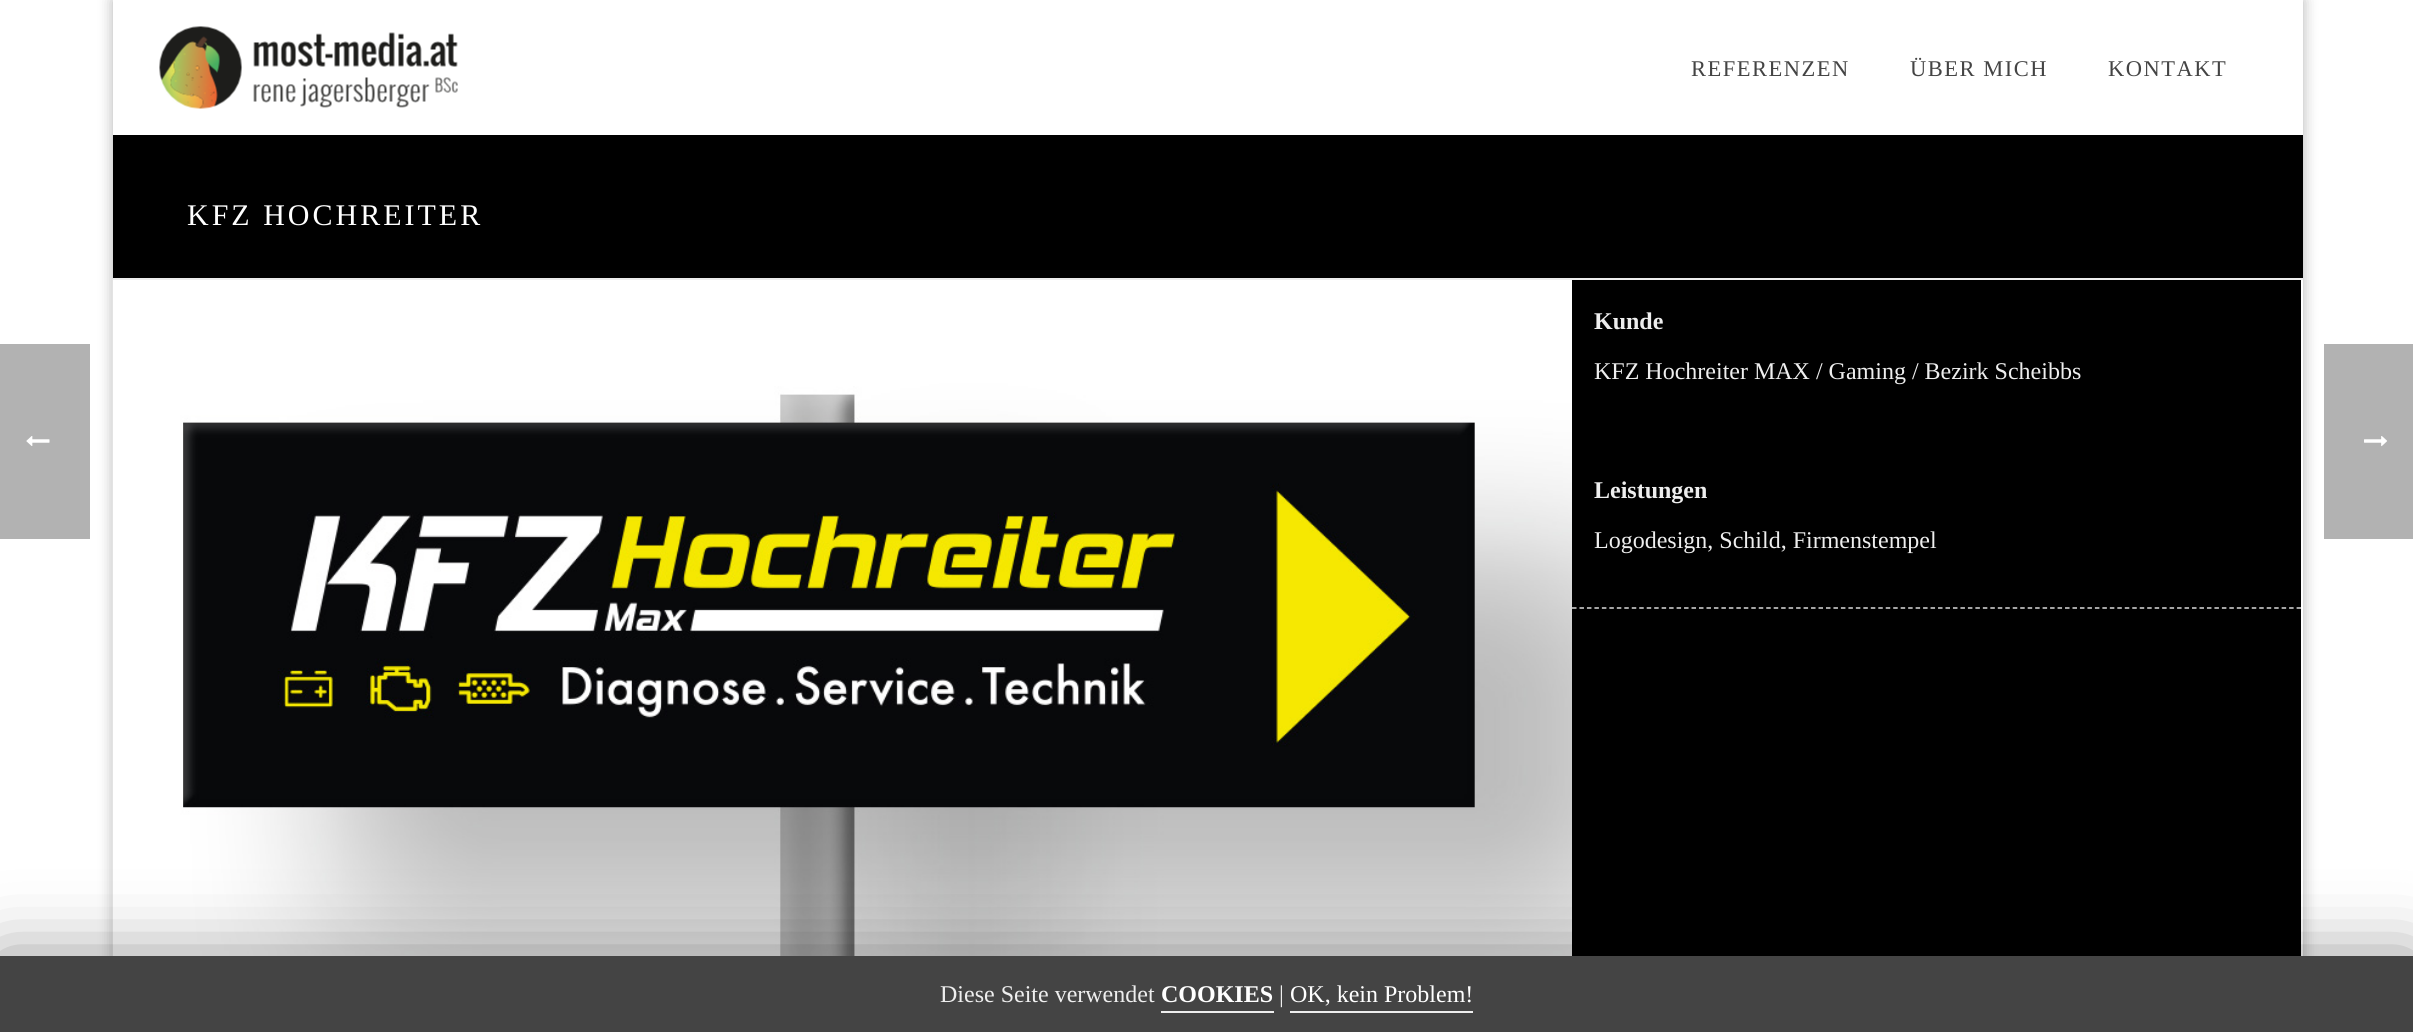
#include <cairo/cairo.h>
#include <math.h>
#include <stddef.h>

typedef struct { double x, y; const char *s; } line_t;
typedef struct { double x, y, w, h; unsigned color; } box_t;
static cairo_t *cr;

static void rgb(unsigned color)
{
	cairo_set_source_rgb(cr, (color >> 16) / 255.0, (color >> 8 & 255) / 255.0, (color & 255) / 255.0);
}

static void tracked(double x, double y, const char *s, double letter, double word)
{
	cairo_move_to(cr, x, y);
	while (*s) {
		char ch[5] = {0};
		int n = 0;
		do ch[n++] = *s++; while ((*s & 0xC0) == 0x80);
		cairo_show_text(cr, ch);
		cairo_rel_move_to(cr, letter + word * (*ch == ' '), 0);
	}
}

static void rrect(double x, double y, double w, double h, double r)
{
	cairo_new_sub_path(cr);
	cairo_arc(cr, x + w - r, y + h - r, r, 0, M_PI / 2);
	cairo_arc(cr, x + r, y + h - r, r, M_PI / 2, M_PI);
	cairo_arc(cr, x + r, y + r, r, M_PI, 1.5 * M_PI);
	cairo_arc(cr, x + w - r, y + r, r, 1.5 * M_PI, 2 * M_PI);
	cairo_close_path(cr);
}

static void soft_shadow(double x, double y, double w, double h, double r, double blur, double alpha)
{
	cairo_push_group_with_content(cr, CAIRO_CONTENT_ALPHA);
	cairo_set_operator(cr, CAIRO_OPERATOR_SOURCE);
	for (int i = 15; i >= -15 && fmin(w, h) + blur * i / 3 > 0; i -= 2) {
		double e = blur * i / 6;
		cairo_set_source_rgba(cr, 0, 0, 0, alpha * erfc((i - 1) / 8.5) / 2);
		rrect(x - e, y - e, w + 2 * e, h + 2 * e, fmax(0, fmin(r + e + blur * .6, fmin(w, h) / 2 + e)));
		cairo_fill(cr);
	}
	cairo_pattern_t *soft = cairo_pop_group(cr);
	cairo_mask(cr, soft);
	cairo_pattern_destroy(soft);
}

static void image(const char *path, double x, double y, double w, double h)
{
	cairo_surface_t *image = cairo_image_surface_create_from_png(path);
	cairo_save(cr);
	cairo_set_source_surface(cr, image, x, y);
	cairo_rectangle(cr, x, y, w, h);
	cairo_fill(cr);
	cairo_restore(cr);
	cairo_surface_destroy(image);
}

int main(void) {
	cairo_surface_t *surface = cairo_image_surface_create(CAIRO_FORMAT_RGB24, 2413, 1032);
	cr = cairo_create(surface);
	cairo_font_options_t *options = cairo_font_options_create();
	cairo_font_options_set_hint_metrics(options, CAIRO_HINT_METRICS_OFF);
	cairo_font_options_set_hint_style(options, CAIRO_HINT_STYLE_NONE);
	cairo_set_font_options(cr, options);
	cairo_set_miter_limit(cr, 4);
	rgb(0xffffff);
	cairo_paint(cr);
	rgb(0x000000);
	soft_shadow(113, 0, 2190, 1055, 0, 7.5, 0.3);
	rgb(0xb2b2b2);
	cairo_rectangle(cr, 0, 344, 90, 195);
	cairo_fill(cr);
	image("img/1.png", 26, 436, 24, 10);
	image("img/3.png", 112, 279, 1460, 677);
	rgb(0xededed);
	cairo_rectangle(cr, 113, 278, 2190, 2);
	cairo_fill(cr);
	rgb(0xffffff);
	cairo_rectangle(cr, 113, 0, 2190, 135);
	cairo_fill(cr);
	image("img/2.png", 159, 26, 299, 83);
	rgb(0x000000);
	cairo_rectangle(cr, 113, 135, 2190, 143);
	cairo_fill(cr);
	cairo_rectangle(cr, 1572, 280, 729, 676);
	cairo_fill(cr);
	cairo_new_path(cr);
	cairo_move_to(cr, 1572, 608);
	cairo_line_to(cr, 2301, 608);
	rgb(0xdadada);
	cairo_set_line_width(cr, 1.5);
	cairo_set_dash(cr, (double[]){4.5, 2.97}, 2, 0);
	cairo_stroke(cr);
	rgb(0xffffff);
	cairo_rectangle(cr, 2301, 280, 2, 676);
	cairo_fill(cr);
	rgb(0xb2b2b2);
	cairo_rectangle(cr, 2324, 344, 89, 195);
	cairo_fill(cr);
	image("img/4.png", 2364, 436, 23, 11);
	rgb(0x000000);
	soft_shadow(0, 963, 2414, 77, 0, 37.5, 0.5);
	{
		static const box_t items[] = {
			{0, 956, 2413, 76, 0x444444},
			{1161, 1011, 113, 2, 0xeeeeee},
			{1290, 1011, 183, 2, 0xeeeeee},
		};
		for (size_t i = 0; i < sizeof items / sizeof *items; i++) {
			rgb(items[i].color);
			cairo_rectangle(cr, items[i].x, items[i].y, items[i].w, items[i].h);
			cairo_fill(cr);
		}
	}
	cairo_select_font_face(cr, "Liberation Serif", CAIRO_FONT_SLANT_NORMAL, CAIRO_FONT_WEIGHT_NORMAL);
	cairo_set_font_size(cr, 22.5);
	rgb(0x444444);
	{
		static const line_t items[] = {
			{1691, 76, "REFERENZEN"},
			{1910, 76, "ÜBER MICH"},
			{2108, 76, "KONTAKT"},
		};
		for (size_t i = 0; i < sizeof items / sizeof *items; i++) {
			tracked(items[i].x, items[i].y, items[i].s, 1.5, 0);
		}
	}
	cairo_set_font_size(cr, 30);
	rgb(0xffffff);
	tracked(187, 225, "KFZ HOCHREITER", 3, 0);
	cairo_select_font_face(cr, "Liberation Serif", CAIRO_FONT_SLANT_NORMAL, CAIRO_FONT_WEIGHT_BOLD);
	cairo_set_font_size(cr, 24);
	rgb(0xeeeeee);
	cairo_move_to(cr, 1594, 329);
	cairo_show_text(cr, "Kunde");
	cairo_select_font_face(cr, "Liberation Serif", CAIRO_FONT_SLANT_NORMAL, CAIRO_FONT_WEIGHT_NORMAL);
	cairo_move_to(cr, 1594, 379);
	cairo_show_text(cr, "KFZ Hochreiter MAX / Gaming / Bezirk Scheibbs");
	cairo_select_font_face(cr, "Liberation Serif", CAIRO_FONT_SLANT_NORMAL, CAIRO_FONT_WEIGHT_BOLD);
	cairo_move_to(cr, 1594, 498);
	cairo_show_text(cr, "Leistungen");
	cairo_select_font_face(cr, "Liberation Serif", CAIRO_FONT_SLANT_NORMAL, CAIRO_FONT_WEIGHT_NORMAL);
	cairo_move_to(cr, 1594, 548);
	cairo_show_text(cr, "Logodesign, Schild, Firmenstempel");
	cairo_move_to(cr, 940, 1002);
	cairo_show_text(cr, "Diese Seite verwendet");
	cairo_select_font_face(cr, "Liberation Serif", CAIRO_FONT_SLANT_NORMAL, CAIRO_FONT_WEIGHT_BOLD);
	rgb(0xffffff);
	cairo_move_to(cr, 1161, 1002);
	cairo_show_text(cr, "COOKIES");
	cairo_select_font_face(cr, "Liberation Serif", CAIRO_FONT_SLANT_NORMAL, CAIRO_FONT_WEIGHT_NORMAL);
	rgb(0xeeeeee);
	cairo_move_to(cr, 1279, 1002);
	cairo_show_text(cr, "|");
	rgb(0xffffff);
	cairo_move_to(cr, 1290, 1002);
	cairo_show_text(cr, "OK, kein Problem!");
	cairo_surface_write_to_png(surface, "page.png");
	cairo_font_options_destroy(options);
	cairo_destroy(cr);
	cairo_surface_destroy(surface);
	return 0;
}
